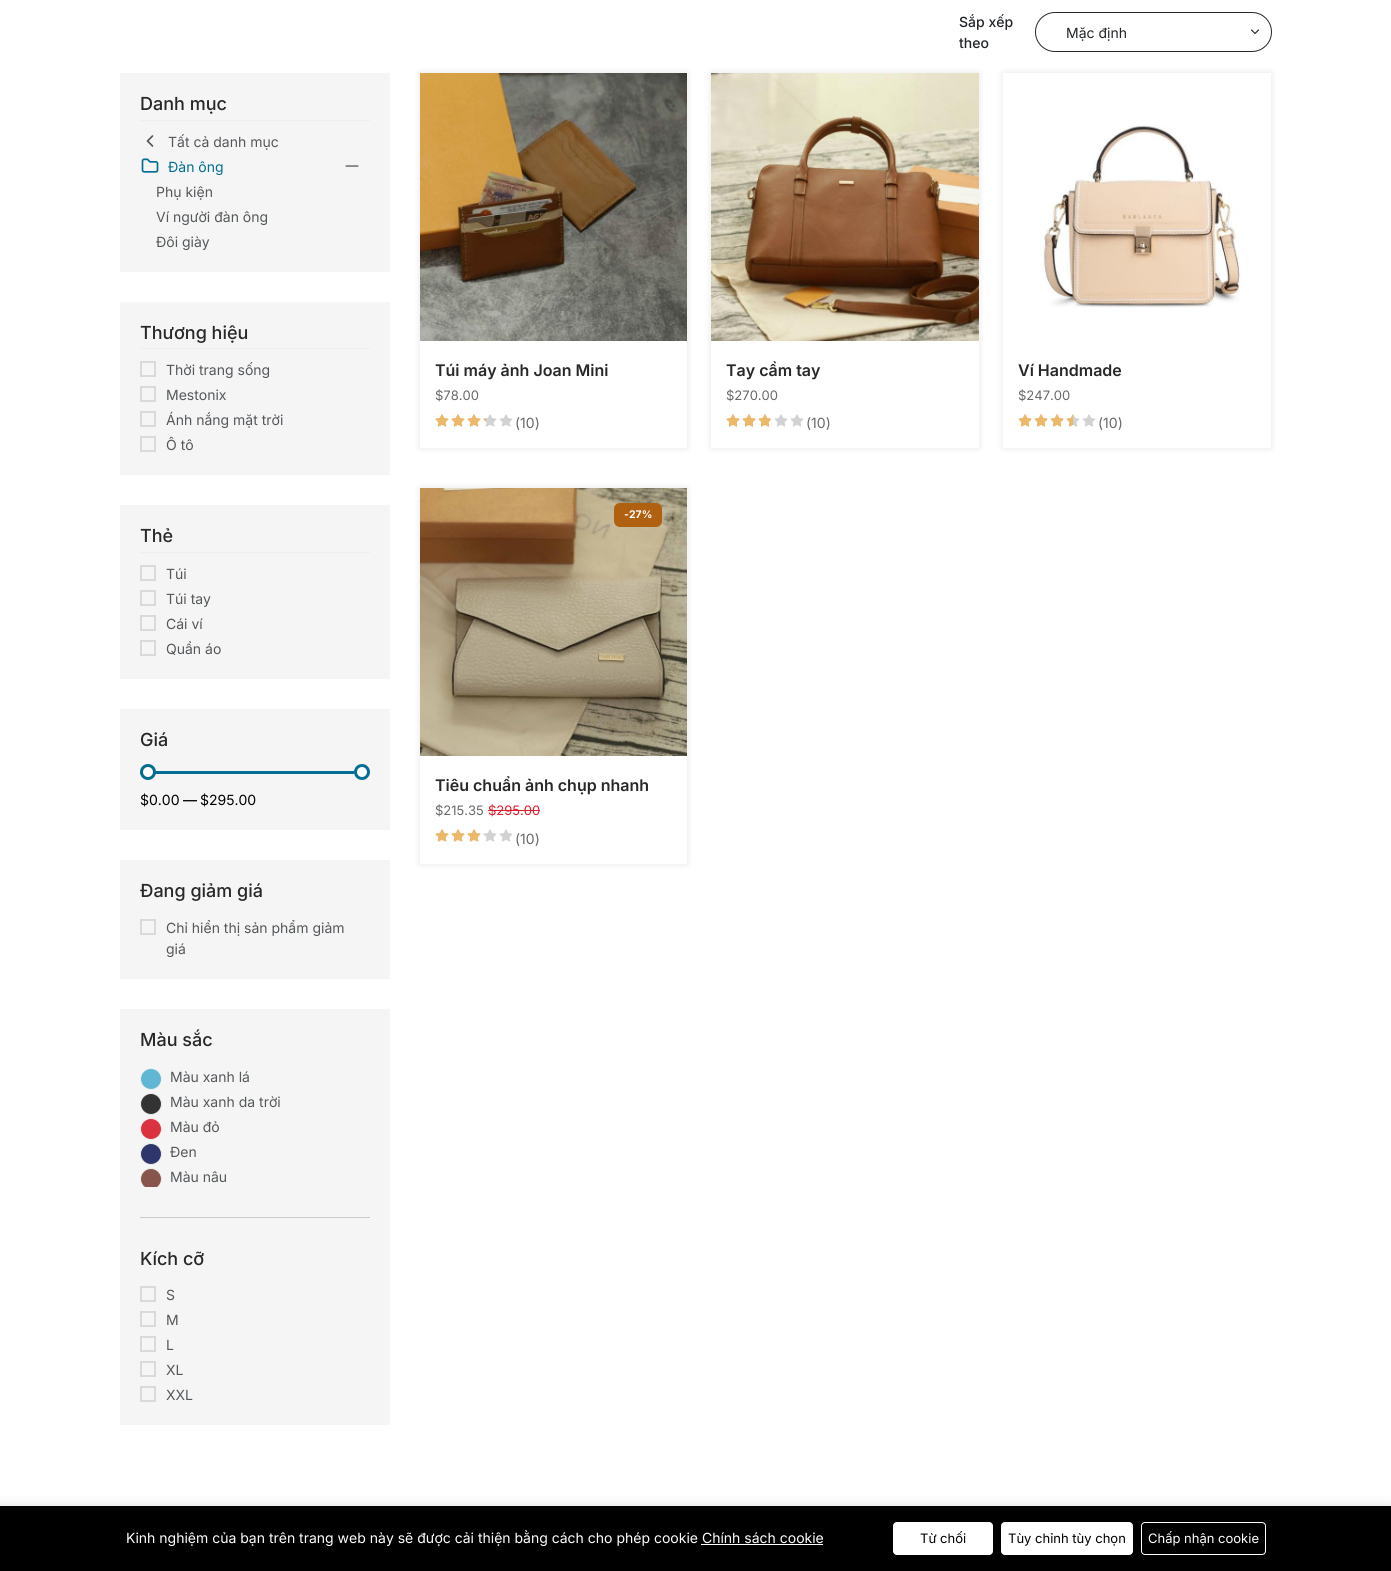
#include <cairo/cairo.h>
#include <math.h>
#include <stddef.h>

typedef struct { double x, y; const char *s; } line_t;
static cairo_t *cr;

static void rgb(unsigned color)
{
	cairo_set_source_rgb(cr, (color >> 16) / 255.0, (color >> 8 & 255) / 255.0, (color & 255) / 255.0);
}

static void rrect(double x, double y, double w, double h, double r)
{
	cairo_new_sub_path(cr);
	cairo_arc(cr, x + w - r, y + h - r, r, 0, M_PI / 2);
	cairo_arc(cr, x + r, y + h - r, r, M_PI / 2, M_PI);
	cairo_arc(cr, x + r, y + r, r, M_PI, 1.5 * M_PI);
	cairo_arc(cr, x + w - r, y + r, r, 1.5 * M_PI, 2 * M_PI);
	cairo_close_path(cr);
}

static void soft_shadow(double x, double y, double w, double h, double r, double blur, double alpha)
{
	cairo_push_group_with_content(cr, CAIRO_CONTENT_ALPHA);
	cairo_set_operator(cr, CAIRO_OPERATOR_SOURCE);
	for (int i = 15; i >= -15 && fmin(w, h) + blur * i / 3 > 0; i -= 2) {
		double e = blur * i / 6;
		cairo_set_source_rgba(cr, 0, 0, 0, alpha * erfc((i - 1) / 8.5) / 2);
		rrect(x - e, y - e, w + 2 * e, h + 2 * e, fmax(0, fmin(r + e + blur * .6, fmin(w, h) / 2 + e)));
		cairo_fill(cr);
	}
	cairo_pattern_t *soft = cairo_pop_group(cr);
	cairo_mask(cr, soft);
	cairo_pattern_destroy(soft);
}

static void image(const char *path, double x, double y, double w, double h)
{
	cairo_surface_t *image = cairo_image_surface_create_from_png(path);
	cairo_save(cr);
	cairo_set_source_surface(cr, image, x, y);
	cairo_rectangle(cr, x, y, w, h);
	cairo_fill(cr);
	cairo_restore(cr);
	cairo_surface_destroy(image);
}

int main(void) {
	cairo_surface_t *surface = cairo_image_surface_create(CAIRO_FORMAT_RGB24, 1391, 1571);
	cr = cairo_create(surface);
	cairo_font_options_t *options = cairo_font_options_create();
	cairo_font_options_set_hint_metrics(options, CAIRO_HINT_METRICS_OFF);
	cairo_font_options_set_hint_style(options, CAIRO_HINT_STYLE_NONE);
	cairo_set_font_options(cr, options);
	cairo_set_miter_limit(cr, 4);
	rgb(0xffffff);
	cairo_paint(cr);
	rrect(1035.5, 12.5, 236, 39, 19.5);
	rgb(0x282828);
	cairo_set_line_width(cr, 1);
	cairo_stroke(cr);
	image("img/1.png", 1251, 29, 8, 5);
	rgb(0xf5f5f5);
	cairo_rectangle(cr, 120, 73, 270, 199);
	cairo_fill(cr);
	rgb(0xeeeeee);
	cairo_rectangle(cr, 140, 120, 230, 1);
	cairo_fill(cr);
	cairo_new_path(cr);
	cairo_move_to(cr, 152.5, 136);
	cairo_line_to(cr, 147.5, 141);
	cairo_line_to(cr, 152.5, 146);
	rgb(0x55585b);
	cairo_set_line_width(cr, 1.7);
	cairo_set_line_cap(cr, CAIRO_LINE_CAP_ROUND);
	cairo_set_line_join(cr, CAIRO_LINE_JOIN_ROUND);
	cairo_stroke(cr);
	image("img/2.png", 141, 158, 18, 15);
	cairo_new_path(cr);
	cairo_move_to(cr, 346, 166);
	cairo_line_to(cr, 358, 166);
	rgb(0x212529);
	cairo_set_line_width(cr, 1);
	cairo_stroke(cr);
	rgb(0xf5f5f5);
	cairo_rectangle(cr, 120, 302, 270, 173);
	cairo_fill(cr);
	rgb(0xeeeeee);
	cairo_rectangle(cr, 140, 348, 230, 1);
	cairo_fill(cr);
	cairo_rectangle(cr, 141, 362, 14, 14);
	rgb(0xdadada);
	cairo_set_line_width(cr, 2);
	cairo_set_line_cap(cr, CAIRO_LINE_CAP_BUTT);
	cairo_set_line_join(cr, CAIRO_LINE_JOIN_MITER);
	cairo_stroke(cr);
	cairo_rectangle(cr, 141, 387, 14, 14);
	cairo_stroke(cr);
	cairo_rectangle(cr, 141, 412, 14, 14);
	cairo_stroke(cr);
	cairo_rectangle(cr, 141, 437, 14, 14);
	cairo_stroke(cr);
	rgb(0xf5f5f5);
	cairo_rectangle(cr, 120, 505, 270, 174);
	cairo_fill(cr);
	rgb(0xeeeeee);
	cairo_rectangle(cr, 140, 552, 230, 1);
	cairo_fill(cr);
	cairo_rectangle(cr, 141, 566, 14, 14);
	rgb(0xdadada);
	cairo_stroke(cr);
	cairo_rectangle(cr, 141, 591, 14, 14);
	cairo_stroke(cr);
	cairo_rectangle(cr, 141, 616, 14, 14);
	cairo_stroke(cr);
	cairo_rectangle(cr, 141, 641, 14, 14);
	cairo_stroke(cr);
	rgb(0xf5f5f5);
	cairo_rectangle(cr, 120, 709, 270, 121);
	cairo_fill(cr);
	rgb(0x026e94);
	cairo_rectangle(cr, 140, 771, 214, 3);
	cairo_fill(cr);
	rgb(0xffffff);
	cairo_arc(cr, 148, 772, 6.5, 0, 2 * M_PI);
	cairo_fill_preserve(cr);
	rgb(0x026e94);
	cairo_set_line_width(cr, 3);
	cairo_stroke(cr);
	rgb(0xffffff);
	cairo_arc(cr, 362, 772, 6.5, 0, 2 * M_PI);
	cairo_fill_preserve(cr);
	rgb(0x026e94);
	cairo_stroke(cr);
	rgb(0xf5f5f5);
	cairo_rectangle(cr, 120, 860, 270, 119);
	cairo_fill(cr);
	cairo_rectangle(cr, 141, 920, 14, 14);
	rgb(0xdadada);
	cairo_set_line_width(cr, 2);
	cairo_stroke(cr);
	rgb(0xf5f5f5);
	cairo_rectangle(cr, 120, 1009, 270, 416);
	cairo_fill(cr);
	rgb(0xcccccc);
	cairo_rectangle(cr, 140, 1217, 230, 1);
	cairo_fill(cr);
	rgb(0x5fb7d4);
	cairo_arc(cr, 151, 1079, 10.5, 0, 2 * M_PI);
	cairo_fill_preserve(cr);
	rgb(0xf0f0f0);
	cairo_set_line_width(cr, 1);
	cairo_stroke(cr);
	rgb(0x333333);
	cairo_arc(cr, 151, 1104, 10.5, 0, 2 * M_PI);
	cairo_fill_preserve(cr);
	rgb(0xf0f0f0);
	cairo_stroke(cr);
	rgb(0xda323f);
	cairo_arc(cr, 151, 1129, 10.5, 0, 2 * M_PI);
	cairo_fill_preserve(cr);
	rgb(0xf0f0f0);
	cairo_stroke(cr);
	rgb(0x2f366c);
	cairo_arc(cr, 151, 1154, 10.5, 0, 2 * M_PI);
	cairo_fill_preserve(cr);
	rgb(0xf0f0f0);
	cairo_stroke(cr);
	cairo_save(cr);
	cairo_rectangle(cr, 140, 1066, 230, 121);
	cairo_clip(cr);
	rgb(0x87554b);
	cairo_arc(cr, 151, 1179, 10.5, 0, 2 * M_PI);
	cairo_fill_preserve(cr);
	rgb(0xf0f0f0);
	cairo_stroke(cr);
	cairo_restore(cr);
	cairo_rectangle(cr, 141, 1287, 14, 14);
	rgb(0xdadada);
	cairo_set_line_width(cr, 2);
	cairo_stroke(cr);
	cairo_rectangle(cr, 141, 1312, 14, 14);
	cairo_stroke(cr);
	cairo_rectangle(cr, 141, 1337, 14, 14);
	cairo_stroke(cr);
	cairo_rectangle(cr, 141, 1362, 14, 14);
	cairo_stroke(cr);
	cairo_rectangle(cr, 141, 1387, 14, 14);
	cairo_stroke(cr);
	cairo_save(cr);
	cairo_set_fill_rule(cr, CAIRO_FILL_RULE_EVEN_ODD);
	cairo_new_path(cr);
	cairo_move_to(cr, 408, 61);
	cairo_line_to(cr, 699, 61);
	cairo_line_to(cr, 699, 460);
	cairo_line_to(cr, 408, 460);
	cairo_close_path(cr);
	cairo_move_to(cr, 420, 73);
	cairo_line_to(cr, 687, 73);
	cairo_line_to(cr, 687, 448);
	cairo_line_to(cr, 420, 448);
	cairo_close_path(cr);
	cairo_clip(cr);
	rgb(0x000000);
	soft_shadow(420, 73, 267, 375, 0, 3.5, 0.1);
	cairo_restore(cr);
	image("img/3.png", 420, 73, 267, 268);
	image("img/4.png", 435, 414, 78, 13);
	image("img/5.png", 435, 414, 51, 13);
	cairo_save(cr);
	cairo_set_fill_rule(cr, CAIRO_FILL_RULE_EVEN_ODD);
	cairo_new_path(cr);
	cairo_move_to(cr, 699, 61);
	cairo_line_to(cr, 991, 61);
	cairo_line_to(cr, 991, 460);
	cairo_line_to(cr, 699, 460);
	cairo_close_path(cr);
	cairo_move_to(cr, 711, 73);
	cairo_line_to(cr, 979, 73);
	cairo_line_to(cr, 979, 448);
	cairo_line_to(cr, 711, 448);
	cairo_close_path(cr);
	cairo_clip(cr);
	rgb(0x000000);
	soft_shadow(711, 73, 268, 375, 0, 3.5, 0.1);
	cairo_restore(cr);
	image("img/6.png", 711, 73, 268, 268);
	image("img/4.png", 726, 414, 78, 13);
	image("img/7.png", 726, 414, 44, 13);
	cairo_save(cr);
	cairo_set_fill_rule(cr, CAIRO_FILL_RULE_EVEN_ODD);
	cairo_new_path(cr);
	cairo_move_to(cr, 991, 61);
	cairo_line_to(cr, 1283, 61);
	cairo_line_to(cr, 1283, 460);
	cairo_line_to(cr, 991, 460);
	cairo_close_path(cr);
	cairo_move_to(cr, 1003, 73);
	cairo_line_to(cr, 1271, 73);
	cairo_line_to(cr, 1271, 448);
	cairo_line_to(cr, 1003, 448);
	cairo_close_path(cr);
	cairo_clip(cr);
	rgb(0x000000);
	soft_shadow(1003, 73, 268, 375, 0, 3.5, 0.1);
	cairo_restore(cr);
	image("img/8.png", 1043, 125, 200, 183);
	image("img/4.png", 1018, 414, 78, 13);
	image("img/9.png", 1018, 414, 55, 13);
	cairo_save(cr);
	cairo_set_fill_rule(cr, CAIRO_FILL_RULE_EVEN_ODD);
	cairo_new_path(cr);
	cairo_move_to(cr, 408, 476);
	cairo_line_to(cr, 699, 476);
	cairo_line_to(cr, 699, 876);
	cairo_line_to(cr, 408, 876);
	cairo_close_path(cr);
	cairo_move_to(cr, 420, 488);
	cairo_line_to(cr, 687, 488);
	cairo_line_to(cr, 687, 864);
	cairo_line_to(cr, 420, 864);
	cairo_close_path(cr);
	cairo_clip(cr);
	rgb(0x000000);
	soft_shadow(420, 488, 267, 376, 0, 3.5, 0.1);
	cairo_restore(cr);
	image("img/10.png", 420, 488, 267, 268);
	rgb(0xaf6010);
	rrect(614, 503, 48, 24, 6);
	cairo_fill(cr);
	rgb(0xdb1d2c);
	cairo_rectangle(cr, 488, 810, 52, 1);
	cairo_fill(cr);
	image("img/4.png", 435, 829, 78, 13);
	image("img/11.png", 435, 829, 49, 13);
	rgb(0x000000);
	soft_shadow(0, 1504, 1391, 65, 0, 5, 0.1);
	rgb(0x000000);
	cairo_rectangle(cr, 0, 1506, 1391, 65);
	cairo_fill(cr);
	rgb(0xffffff);
	cairo_rectangle(cr, 701, 1544, 122, 1);
	cairo_fill(cr);
	rrect(893.5, 1522.5, 99, 32, 3.5);
	cairo_fill_preserve(cr);
	cairo_set_line_width(cr, 1);
	cairo_stroke(cr);
	rrect(1001.5, 1522.5, 131, 32, 3.5);
	cairo_fill_preserve(cr);
	cairo_stroke(cr);
	rrect(1141.5, 1522.5, 124, 32, 3.5);
	cairo_stroke(cr);
	cairo_select_font_face(cr, "Inter Medium", CAIRO_FONT_SLANT_NORMAL, CAIRO_FONT_WEIGHT_NORMAL);
	cairo_set_font_size(cr, 14);
	rgb(0x212529);
	cairo_move_to(cr, 959, 27);
	cairo_show_text(cr, "Sắp xếp");
	cairo_move_to(cr, 959, 48);
	cairo_show_text(cr, "theo");
	cairo_select_font_face(cr, "Inter", CAIRO_FONT_SLANT_NORMAL, CAIRO_FONT_WEIGHT_NORMAL);
	cairo_move_to(cr, 1066, 38);
	cairo_show_text(cr, "Mặc định");
	cairo_select_font_face(cr, "Inter Medium", CAIRO_FONT_SLANT_NORMAL, CAIRO_FONT_WEIGHT_NORMAL);
	cairo_set_font_size(cr, 18);
	rgb(0x282828);
	cairo_move_to(cr, 140, 110);
	cairo_show_text(cr, "Danh mục");
	cairo_select_font_face(cr, "Inter", CAIRO_FONT_SLANT_NORMAL, CAIRO_FONT_WEIGHT_NORMAL);
	cairo_set_font_size(cr, 14);
	rgb(0x55585b);
	cairo_move_to(cr, 168, 147);
	cairo_show_text(cr, "Tất cả danh mục");
	rgb(0x026e94);
	cairo_move_to(cr, 168, 172);
	cairo_show_text(cr, "Đàn ông");
	rgb(0x55585b);
	{
		static const line_t items[] = {
			{156, 197, "Phụ kiện"},
			{156, 222, "Ví người đàn ông"},
			{156, 247, "Đôi giày"},
		};
		for (size_t i = 0; i < sizeof items / sizeof *items; i++) {
			cairo_move_to(cr, items[i].x, items[i].y);
			cairo_show_text(cr, items[i].s);
		}
	}
	cairo_select_font_face(cr, "Inter Medium", CAIRO_FONT_SLANT_NORMAL, CAIRO_FONT_WEIGHT_NORMAL);
	cairo_set_font_size(cr, 18);
	rgb(0x282828);
	cairo_move_to(cr, 140, 339);
	cairo_show_text(cr, "Thương hiệu");
	cairo_select_font_face(cr, "Inter", CAIRO_FONT_SLANT_NORMAL, CAIRO_FONT_WEIGHT_NORMAL);
	cairo_set_font_size(cr, 14);
	rgb(0x55585b);
	{
		static const line_t items[] = {
			{166, 375, "Thời trang sống"},
			{166, 400, "Mestonix"},
			{166, 425, "Ánh nắng mặt trời"},
			{166, 450, "Ô tô"},
		};
		for (size_t i = 0; i < sizeof items / sizeof *items; i++) {
			cairo_move_to(cr, items[i].x, items[i].y);
			cairo_show_text(cr, items[i].s);
		}
	}
	cairo_select_font_face(cr, "Inter Medium", CAIRO_FONT_SLANT_NORMAL, CAIRO_FONT_WEIGHT_NORMAL);
	cairo_set_font_size(cr, 18);
	rgb(0x282828);
	cairo_move_to(cr, 140, 542);
	cairo_show_text(cr, "Thẻ");
	cairo_select_font_face(cr, "Inter", CAIRO_FONT_SLANT_NORMAL, CAIRO_FONT_WEIGHT_NORMAL);
	cairo_set_font_size(cr, 14);
	rgb(0x55585b);
	{
		static const line_t items[] = {
			{166, 579, "Túi"},
			{166, 604, "Túi tay"},
			{166, 629, "Cái ví"},
			{166, 654, "Quần áo"},
		};
		for (size_t i = 0; i < sizeof items / sizeof *items; i++) {
			cairo_move_to(cr, items[i].x, items[i].y);
			cairo_show_text(cr, items[i].s);
		}
	}
	cairo_select_font_face(cr, "Inter Medium", CAIRO_FONT_SLANT_NORMAL, CAIRO_FONT_WEIGHT_NORMAL);
	cairo_set_font_size(cr, 18);
	rgb(0x282828);
	cairo_move_to(cr, 140, 746);
	cairo_show_text(cr, "Giá");
	cairo_select_font_face(cr, "Inter", CAIRO_FONT_SLANT_NORMAL, CAIRO_FONT_WEIGHT_NORMAL);
	cairo_set_font_size(cr, 14);
	rgb(0x000000);
	cairo_move_to(cr, 140, 805);
	cairo_show_text(cr, "$0.00");
	cairo_select_font_face(cr, "Inter Medium", CAIRO_FONT_SLANT_NORMAL, CAIRO_FONT_WEIGHT_NORMAL);
	cairo_move_to(cr, 183, 805);
	cairo_show_text(cr, "—");
	cairo_select_font_face(cr, "Inter", CAIRO_FONT_SLANT_NORMAL, CAIRO_FONT_WEIGHT_NORMAL);
	cairo_move_to(cr, 200, 805);
	cairo_show_text(cr, "$295.00");
	cairo_select_font_face(cr, "Inter Medium", CAIRO_FONT_SLANT_NORMAL, CAIRO_FONT_WEIGHT_NORMAL);
	cairo_set_font_size(cr, 18);
	rgb(0x282828);
	cairo_move_to(cr, 140, 897);
	cairo_show_text(cr, "Đang giảm giá");
	cairo_select_font_face(cr, "Inter", CAIRO_FONT_SLANT_NORMAL, CAIRO_FONT_WEIGHT_NORMAL);
	cairo_set_font_size(cr, 14);
	rgb(0x55585b);
	cairo_move_to(cr, 166, 933);
	cairo_show_text(cr, "Chỉ hiển thị sản phẩm giảm");
	cairo_move_to(cr, 166, 954);
	cairo_show_text(cr, "giá");
	cairo_select_font_face(cr, "Inter Medium", CAIRO_FONT_SLANT_NORMAL, CAIRO_FONT_WEIGHT_NORMAL);
	cairo_set_font_size(cr, 18);
	rgb(0x282828);
	cairo_move_to(cr, 140, 1046);
	cairo_show_text(cr, "Màu sắc");
	cairo_select_font_face(cr, "Inter", CAIRO_FONT_SLANT_NORMAL, CAIRO_FONT_WEIGHT_NORMAL);
	cairo_set_font_size(cr, 14);
	rgb(0x55585b);
	{
		static const line_t items[] = {
			{170, 1082, "Màu xanh lá"},
			{170, 1107, "Màu xanh da trời"},
			{170, 1132, "Màu đỏ"},
			{170, 1157, "Đen"},
			{170, 1182, "Màu nâu"},
		};
		for (size_t i = 0; i < sizeof items / sizeof *items; i++) {
			cairo_move_to(cr, items[i].x, items[i].y);
			cairo_show_text(cr, items[i].s);
		}
	}
	cairo_select_font_face(cr, "Inter Medium", CAIRO_FONT_SLANT_NORMAL, CAIRO_FONT_WEIGHT_NORMAL);
	cairo_set_font_size(cr, 18);
	rgb(0x282828);
	cairo_move_to(cr, 140, 1265);
	cairo_show_text(cr, "Kích cỡ");
	cairo_select_font_face(cr, "Inter", CAIRO_FONT_SLANT_NORMAL, CAIRO_FONT_WEIGHT_NORMAL);
	cairo_set_font_size(cr, 14);
	rgb(0x55585b);
	{
		static const line_t items[] = {
			{166, 1300, "S"},
			{166, 1325, "M"},
			{166, 1350, "L"},
			{166, 1375, "XL"},
			{166, 1400, "XXL"},
		};
		for (size_t i = 0; i < sizeof items / sizeof *items; i++) {
			cairo_move_to(cr, items[i].x, items[i].y);
			cairo_show_text(cr, items[i].s);
		}
	}
	cairo_select_font_face(cr, "Inter SemiBold", CAIRO_FONT_SLANT_NORMAL, CAIRO_FONT_WEIGHT_NORMAL);
	cairo_set_font_size(cr, 16);
	rgb(0x282828);
	cairo_move_to(cr, 435, 376);
	cairo_show_text(cr, "Túi máy ảnh Joan Mini");
	cairo_select_font_face(cr, "Inter", CAIRO_FONT_SLANT_NORMAL, CAIRO_FONT_WEIGHT_NORMAL);
	cairo_set_font_size(cr, 13);
	rgb(0x696969);
	cairo_move_to(cr, 435, 400);
	cairo_show_text(cr, "$78.00");
	cairo_set_font_size(cr, 14);
	cairo_move_to(cr, 515, 428);
	cairo_show_text(cr, "(10)");
	cairo_select_font_face(cr, "Inter SemiBold", CAIRO_FONT_SLANT_NORMAL, CAIRO_FONT_WEIGHT_NORMAL);
	cairo_set_font_size(cr, 16);
	rgb(0x282828);
	cairo_move_to(cr, 726, 376);
	cairo_show_text(cr, "Tay cầm tay");
	cairo_select_font_face(cr, "Inter", CAIRO_FONT_SLANT_NORMAL, CAIRO_FONT_WEIGHT_NORMAL);
	cairo_set_font_size(cr, 13);
	rgb(0x696969);
	cairo_move_to(cr, 726, 400);
	cairo_show_text(cr, "$270.00");
	cairo_set_font_size(cr, 14);
	cairo_move_to(cr, 806, 428);
	cairo_show_text(cr, "(10)");
	cairo_select_font_face(cr, "Inter SemiBold", CAIRO_FONT_SLANT_NORMAL, CAIRO_FONT_WEIGHT_NORMAL);
	cairo_set_font_size(cr, 16);
	rgb(0x282828);
	cairo_move_to(cr, 1018, 376);
	cairo_show_text(cr, "Ví Handmade");
	cairo_select_font_face(cr, "Inter", CAIRO_FONT_SLANT_NORMAL, CAIRO_FONT_WEIGHT_NORMAL);
	cairo_set_font_size(cr, 13);
	rgb(0x696969);
	cairo_move_to(cr, 1018, 400);
	cairo_show_text(cr, "$247.00");
	cairo_set_font_size(cr, 14);
	cairo_move_to(cr, 1098, 428);
	cairo_show_text(cr, "(10)");
	cairo_select_font_face(cr, "Inter", CAIRO_FONT_SLANT_NORMAL, CAIRO_FONT_WEIGHT_BOLD);
	cairo_set_font_size(cr, 10.5);
	rgb(0xffffff);
	cairo_move_to(cr, 624, 518);
	cairo_show_text(cr, "-27%");
	cairo_select_font_face(cr, "Inter SemiBold", CAIRO_FONT_SLANT_NORMAL, CAIRO_FONT_WEIGHT_NORMAL);
	cairo_set_font_size(cr, 16);
	rgb(0x282828);
	cairo_move_to(cr, 435, 791);
	cairo_show_text(cr, "Tiêu chuẩn ảnh chụp nhanh");
	cairo_select_font_face(cr, "Inter", CAIRO_FONT_SLANT_NORMAL, CAIRO_FONT_WEIGHT_NORMAL);
	cairo_set_font_size(cr, 13);
	rgb(0x696969);
	cairo_move_to(cr, 435, 815);
	cairo_show_text(cr, "$215.35");
	rgb(0xdb1d2c);
	cairo_move_to(cr, 488, 815);
	cairo_show_text(cr, "$295.00");
	cairo_set_font_size(cr, 14);
	rgb(0x696969);
	cairo_move_to(cr, 515, 844);
	cairo_show_text(cr, "(10)");
	rgb(0xffffff);
	cairo_move_to(cr, 126, 1543);
	cairo_show_text(cr, "Kinh nghiệm của bạn trên trang web này sẽ được cải thiện bằng cách cho phép cookie Chính sách cookie");
	cairo_set_font_size(cr, 13);
	rgb(0x000000);
	cairo_move_to(cr, 920, 1543);
	cairo_show_text(cr, "Từ chối");
	cairo_move_to(cr, 1008, 1543);
	cairo_show_text(cr, "Tùy chỉnh tùy chọn");
	rgb(0xffffff);
	cairo_move_to(cr, 1148, 1543);
	cairo_show_text(cr, "Chấp nhận cookie");
	cairo_surface_write_to_png(surface, "page.png");
	cairo_font_options_destroy(options);
	cairo_destroy(cr);
	cairo_surface_destroy(surface);
	return 0;
}
